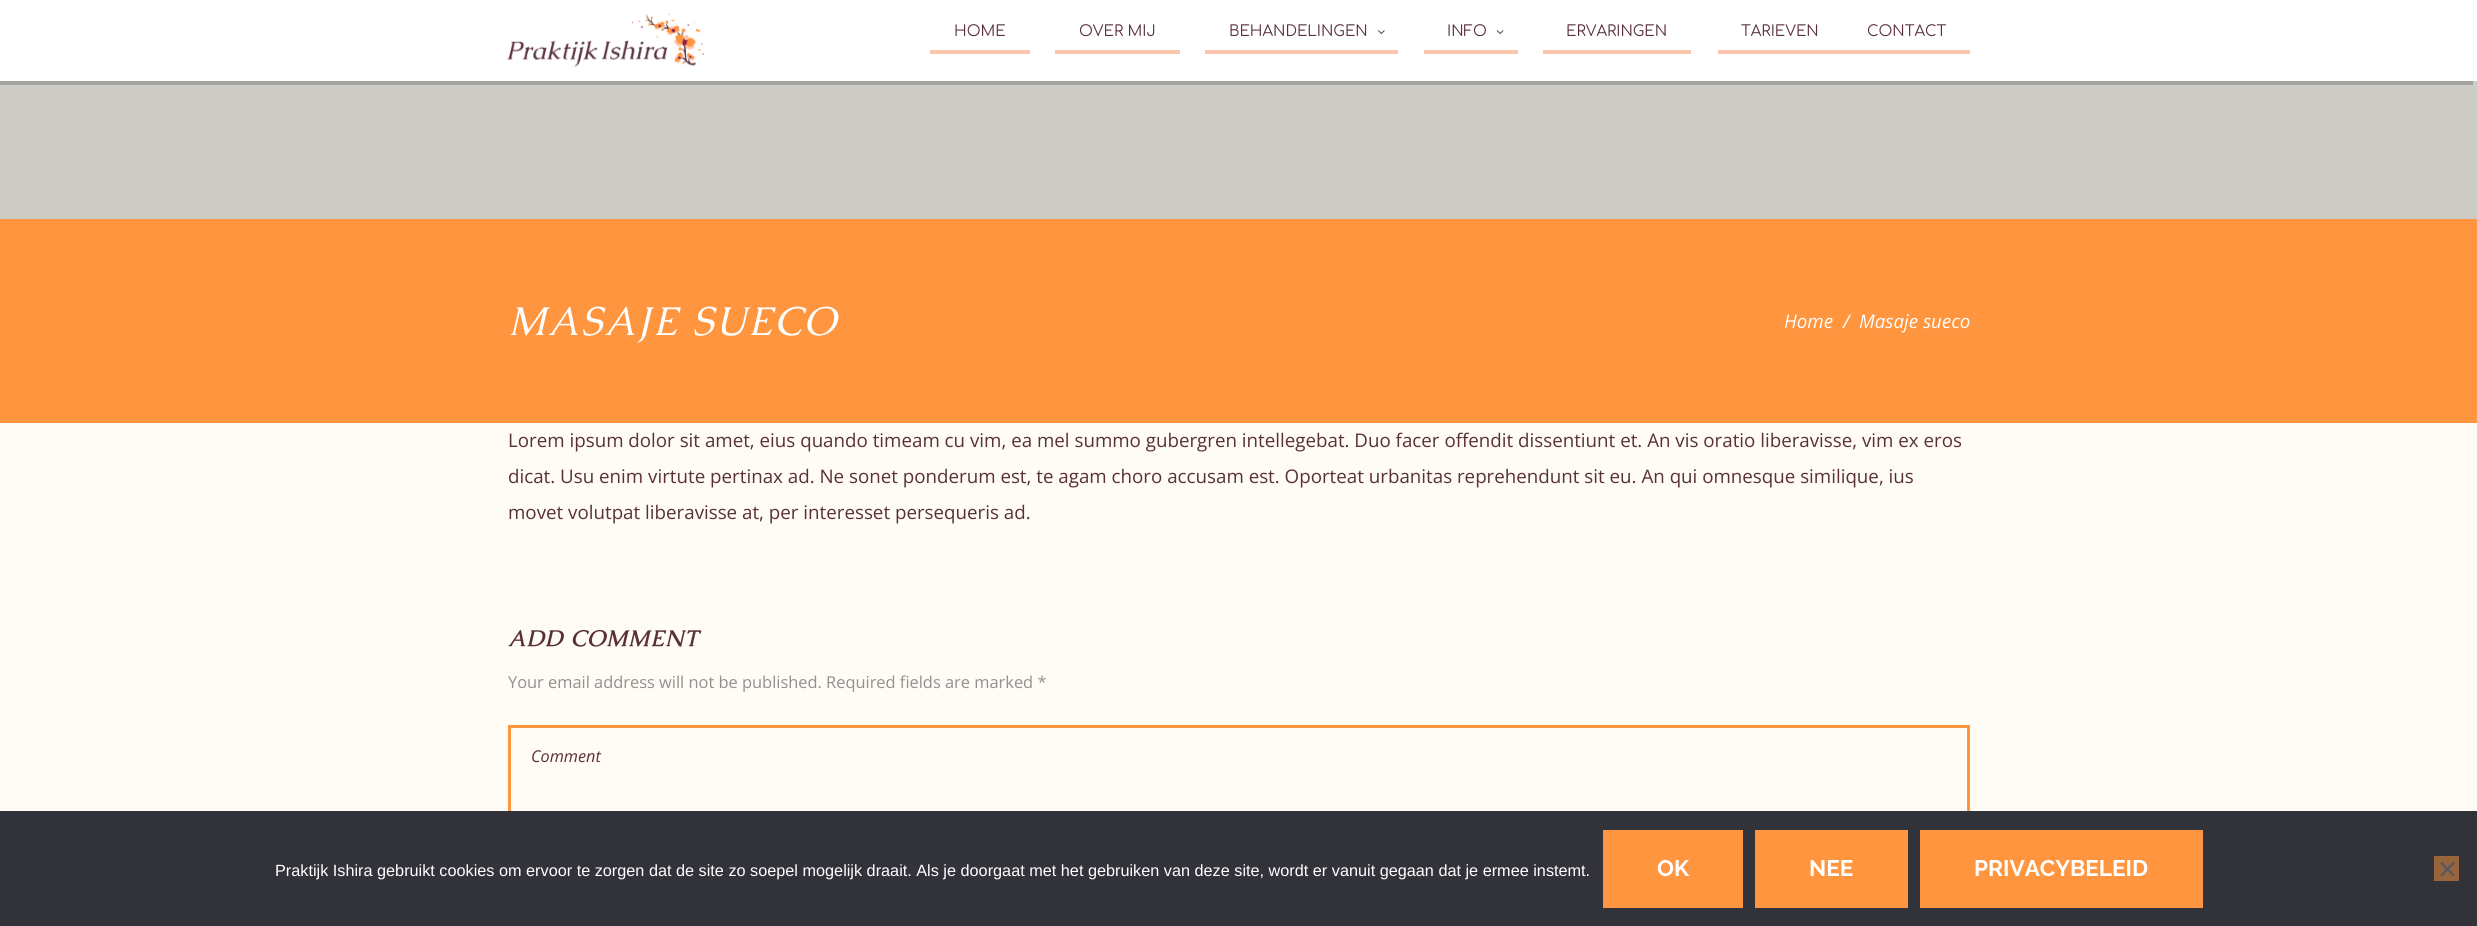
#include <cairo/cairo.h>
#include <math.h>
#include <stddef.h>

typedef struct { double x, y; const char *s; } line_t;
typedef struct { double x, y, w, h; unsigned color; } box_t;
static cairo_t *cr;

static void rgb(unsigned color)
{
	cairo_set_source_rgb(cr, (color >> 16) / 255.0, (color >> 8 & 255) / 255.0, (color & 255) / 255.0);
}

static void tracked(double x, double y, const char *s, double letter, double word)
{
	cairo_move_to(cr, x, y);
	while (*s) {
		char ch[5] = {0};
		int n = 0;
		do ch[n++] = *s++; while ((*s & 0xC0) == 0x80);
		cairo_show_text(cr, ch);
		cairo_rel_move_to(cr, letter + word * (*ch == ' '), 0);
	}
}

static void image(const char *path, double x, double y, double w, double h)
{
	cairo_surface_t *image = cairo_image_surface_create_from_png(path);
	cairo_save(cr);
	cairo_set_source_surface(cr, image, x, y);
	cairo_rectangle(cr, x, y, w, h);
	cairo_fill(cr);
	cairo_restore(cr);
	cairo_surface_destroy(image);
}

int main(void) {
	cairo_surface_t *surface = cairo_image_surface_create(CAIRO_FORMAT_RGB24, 2477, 926);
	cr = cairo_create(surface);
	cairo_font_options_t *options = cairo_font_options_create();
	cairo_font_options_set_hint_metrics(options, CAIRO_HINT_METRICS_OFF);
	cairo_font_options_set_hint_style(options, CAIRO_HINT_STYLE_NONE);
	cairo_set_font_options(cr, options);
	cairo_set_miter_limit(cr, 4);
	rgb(0xfffcf5);
	cairo_paint(cr);
	rgb(0xcdcbc5);
	cairo_rectangle(cr, 0, 81, 2477, 138);
	cairo_fill(cr);
	rgb(0xa4a29e);
	cairo_new_path(cr);
	cairo_move_to(cr, -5, 4);
	cairo_line_to(cr, -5, 85);
	cairo_line_to(cr, 2473, 85);
	cairo_line_to(cr, 2473, 81);
	cairo_line_to(cr, 0, 81);
	cairo_line_to(cr, 0, 4);
	cairo_close_path(cr);
	cairo_fill(cr);
	rgb(0xffffff);
	cairo_rectangle(cr, 0, 0, 2477, 81);
	cairo_fill(cr);
	image("img/1.png", 507, 13, 197, 54);
	{
		static const box_t items[] = {
			{930, 50, 100, 4, 0xfcc6ae},
			{1055, 50, 125, 4, 0xfcc6ae},
			{1205, 50, 193, 4, 0xfcc6ae},
		};
		for (size_t i = 0; i < sizeof items / sizeof *items; i++) {
			rgb(items[i].color);
			cairo_rectangle(cr, items[i].x, items[i].y, items[i].w, items[i].h);
			cairo_fill(cr);
		}
	}
	image("img/2.png", 1378, 30, 7, 4);
	cairo_rectangle(cr, 1424, 50, 94, 4);
	cairo_fill(cr);
	image("img/3.png", 1496, 30, 8, 4);
	{
		static const box_t items[] = {
			{1543, 50, 148, 4, 0xfcc6ae},
			{1718, 50, 252, 4, 0xfcc6ae},
			{0, 219, 2477, 204, 0xff953e},
		};
		for (size_t i = 0; i < sizeof items / sizeof *items; i++) {
			rgb(items[i].color);
			cairo_rectangle(cr, items[i].x, items[i].y, items[i].w, items[i].h);
			cairo_fill(cr);
		}
	}
	cairo_rectangle(cr, 509.5, 726.5, 1459, 127);
	cairo_set_line_width(cr, 3);
	cairo_stroke(cr);
	{
		static const box_t items[] = {
			{0, 811, 2477, 115, 0x32323a},
			{1603, 830, 140, 78, 0xff953e},
			{1755, 830, 153, 78, 0xff953e},
			{1920, 830, 283, 78, 0xff953e},
			{2434, 856, 25, 25, 0x99643c},
		};
		for (size_t i = 0; i < sizeof items / sizeof *items; i++) {
			rgb(items[i].color);
			cairo_rectangle(cr, items[i].x, items[i].y, items[i].w, items[i].h);
			cairo_fill(cr);
		}
	}
	rgb(0x59595d);
	cairo_new_path(cr);
	cairo_move_to(cr, 2453, 861.5);
	cairo_line_to(cr, 2455, 863.5);
	cairo_line_to(cr, 2442, 876.5);
	cairo_line_to(cr, 2440, 875);
	cairo_close_path(cr);
	cairo_fill(cr);
	cairo_new_path(cr);
	cairo_move_to(cr, 2440, 863.5);
	cairo_line_to(cr, 2442, 861.5);
	cairo_line_to(cr, 2455, 875);
	cairo_line_to(cr, 2453, 876.5);
	cairo_close_path(cr);
	cairo_fill(cr);
	cairo_select_font_face(cr, "Comfortaa", CAIRO_FONT_SLANT_NORMAL, CAIRO_FONT_WEIGHT_NORMAL);
	cairo_set_font_size(cr, 15);
	rgb(0x59303a);
	{
		static const line_t items[] = {
			{954, 36, "HOME"},
			{1079, 36, "OVER MIJ"},
			{1229, 36, "BEHANDELINGEN"},
			{1447, 36, "INFO"},
			{1566, 36, "ERVARINGEN"},
			{1741, 36, "TARIEVEN"},
			{1867, 36, "CONTACT"},
		};
		for (size_t i = 0; i < sizeof items / sizeof *items; i++) {
			cairo_move_to(cr, items[i].x, items[i].y);
			cairo_show_text(cr, items[i].s);
		}
	}
	cairo_select_font_face(cr, "Caudex", CAIRO_FONT_SLANT_ITALIC, CAIRO_FONT_WEIGHT_NORMAL);
	cairo_set_font_size(cr, 40.25);
	rgb(0xffffff);
	tracked(508, 335, "MASAJE SUECO", 2, 0);
	cairo_select_font_face(cr, "Open Sans", CAIRO_FONT_SLANT_ITALIC, CAIRO_FONT_WEIGHT_NORMAL);
	cairo_set_font_size(cr, 18.75);
	{
		static const line_t items[] = {
			{1784, 328, "Home"},
			{1843, 328, "/"},
			{1859, 328, "Masaje sueco"},
		};
		for (size_t i = 0; i < sizeof items / sizeof *items; i++) {
			cairo_move_to(cr, items[i].x, items[i].y);
			cairo_show_text(cr, items[i].s);
		}
	}
	cairo_select_font_face(cr, "Open Sans", CAIRO_FONT_SLANT_NORMAL, CAIRO_FONT_WEIGHT_NORMAL);
	rgb(0x59303a);
	{
		static const line_t items[] = {
			{508, 447, "Lorem ipsum dolor sit amet, eius quando timeam cu vim, ea mel summo gubergren intellegebat. Duo facer offendit dissentiunt et. An vis oratio liberavisse, vim ex eros"},
			{508, 483, "dicat. Usu enim virtute pertinax ad. Ne sonet ponderum est, te agam choro accusam est. Oporteat urbanitas reprehendunt sit eu. An qui omnesque similique, ius"},
			{508, 519, "movet volutpat liberavisse at, per interesset persequeris ad."},
		};
		for (size_t i = 0; i < sizeof items / sizeof *items; i++) {
			cairo_move_to(cr, items[i].x, items[i].y);
			cairo_show_text(cr, items[i].s);
		}
	}
	cairo_select_font_face(cr, "Caudex", CAIRO_FONT_SLANT_ITALIC, CAIRO_FONT_WEIGHT_BOLD);
	cairo_set_font_size(cr, 22.5);
	tracked(508, 646, "ADD COMMENT", 1.1, 0);
	cairo_select_font_face(cr, "Open Sans", CAIRO_FONT_SLANT_NORMAL, CAIRO_FONT_WEIGHT_NORMAL);
	cairo_set_font_size(cr, 16.4);
	rgb(0x909090);
	cairo_move_to(cr, 508, 688);
	cairo_show_text(cr, "Your email address will not be published. Required fields are marked *");
	cairo_select_font_face(cr, "Open Sans", CAIRO_FONT_SLANT_ITALIC, CAIRO_FONT_WEIGHT_NORMAL);
	cairo_set_font_size(cr, 16.25);
	rgb(0x59303a);
	cairo_move_to(cr, 531, 762);
	cairo_show_text(cr, "Comment");
	cairo_select_font_face(cr, "Liberation Sans", CAIRO_FONT_SLANT_NORMAL, CAIRO_FONT_WEIGHT_NORMAL);
	rgb(0xffffff);
	cairo_move_to(cr, 275, 876);
	cairo_show_text(cr, "Praktijk Ishira gebruikt cookies om ervoor te zorgen dat de site zo soepel mogelijk draait. Als je doorgaat met het gebruiken van deze site, wordt er vanuit gegaan dat je ermee instemt.");
	cairo_select_font_face(cr, "Raleway", CAIRO_FONT_SLANT_NORMAL, CAIRO_FONT_WEIGHT_BOLD);
	cairo_set_font_size(cr, 22.5);
	{
		static const line_t items[] = {
			{1657, 876, "OK"},
			{1809, 876, "NEE"},
			{1974, 876, "PRIVACYBELEID"},
		};
		for (size_t i = 0; i < sizeof items / sizeof *items; i++) {
			cairo_move_to(cr, items[i].x, items[i].y);
			cairo_show_text(cr, items[i].s);
		}
	}
	cairo_surface_write_to_png(surface, "page.png");
	cairo_font_options_destroy(options);
	cairo_destroy(cr);
	cairo_surface_destroy(surface);
	return 0;
}
